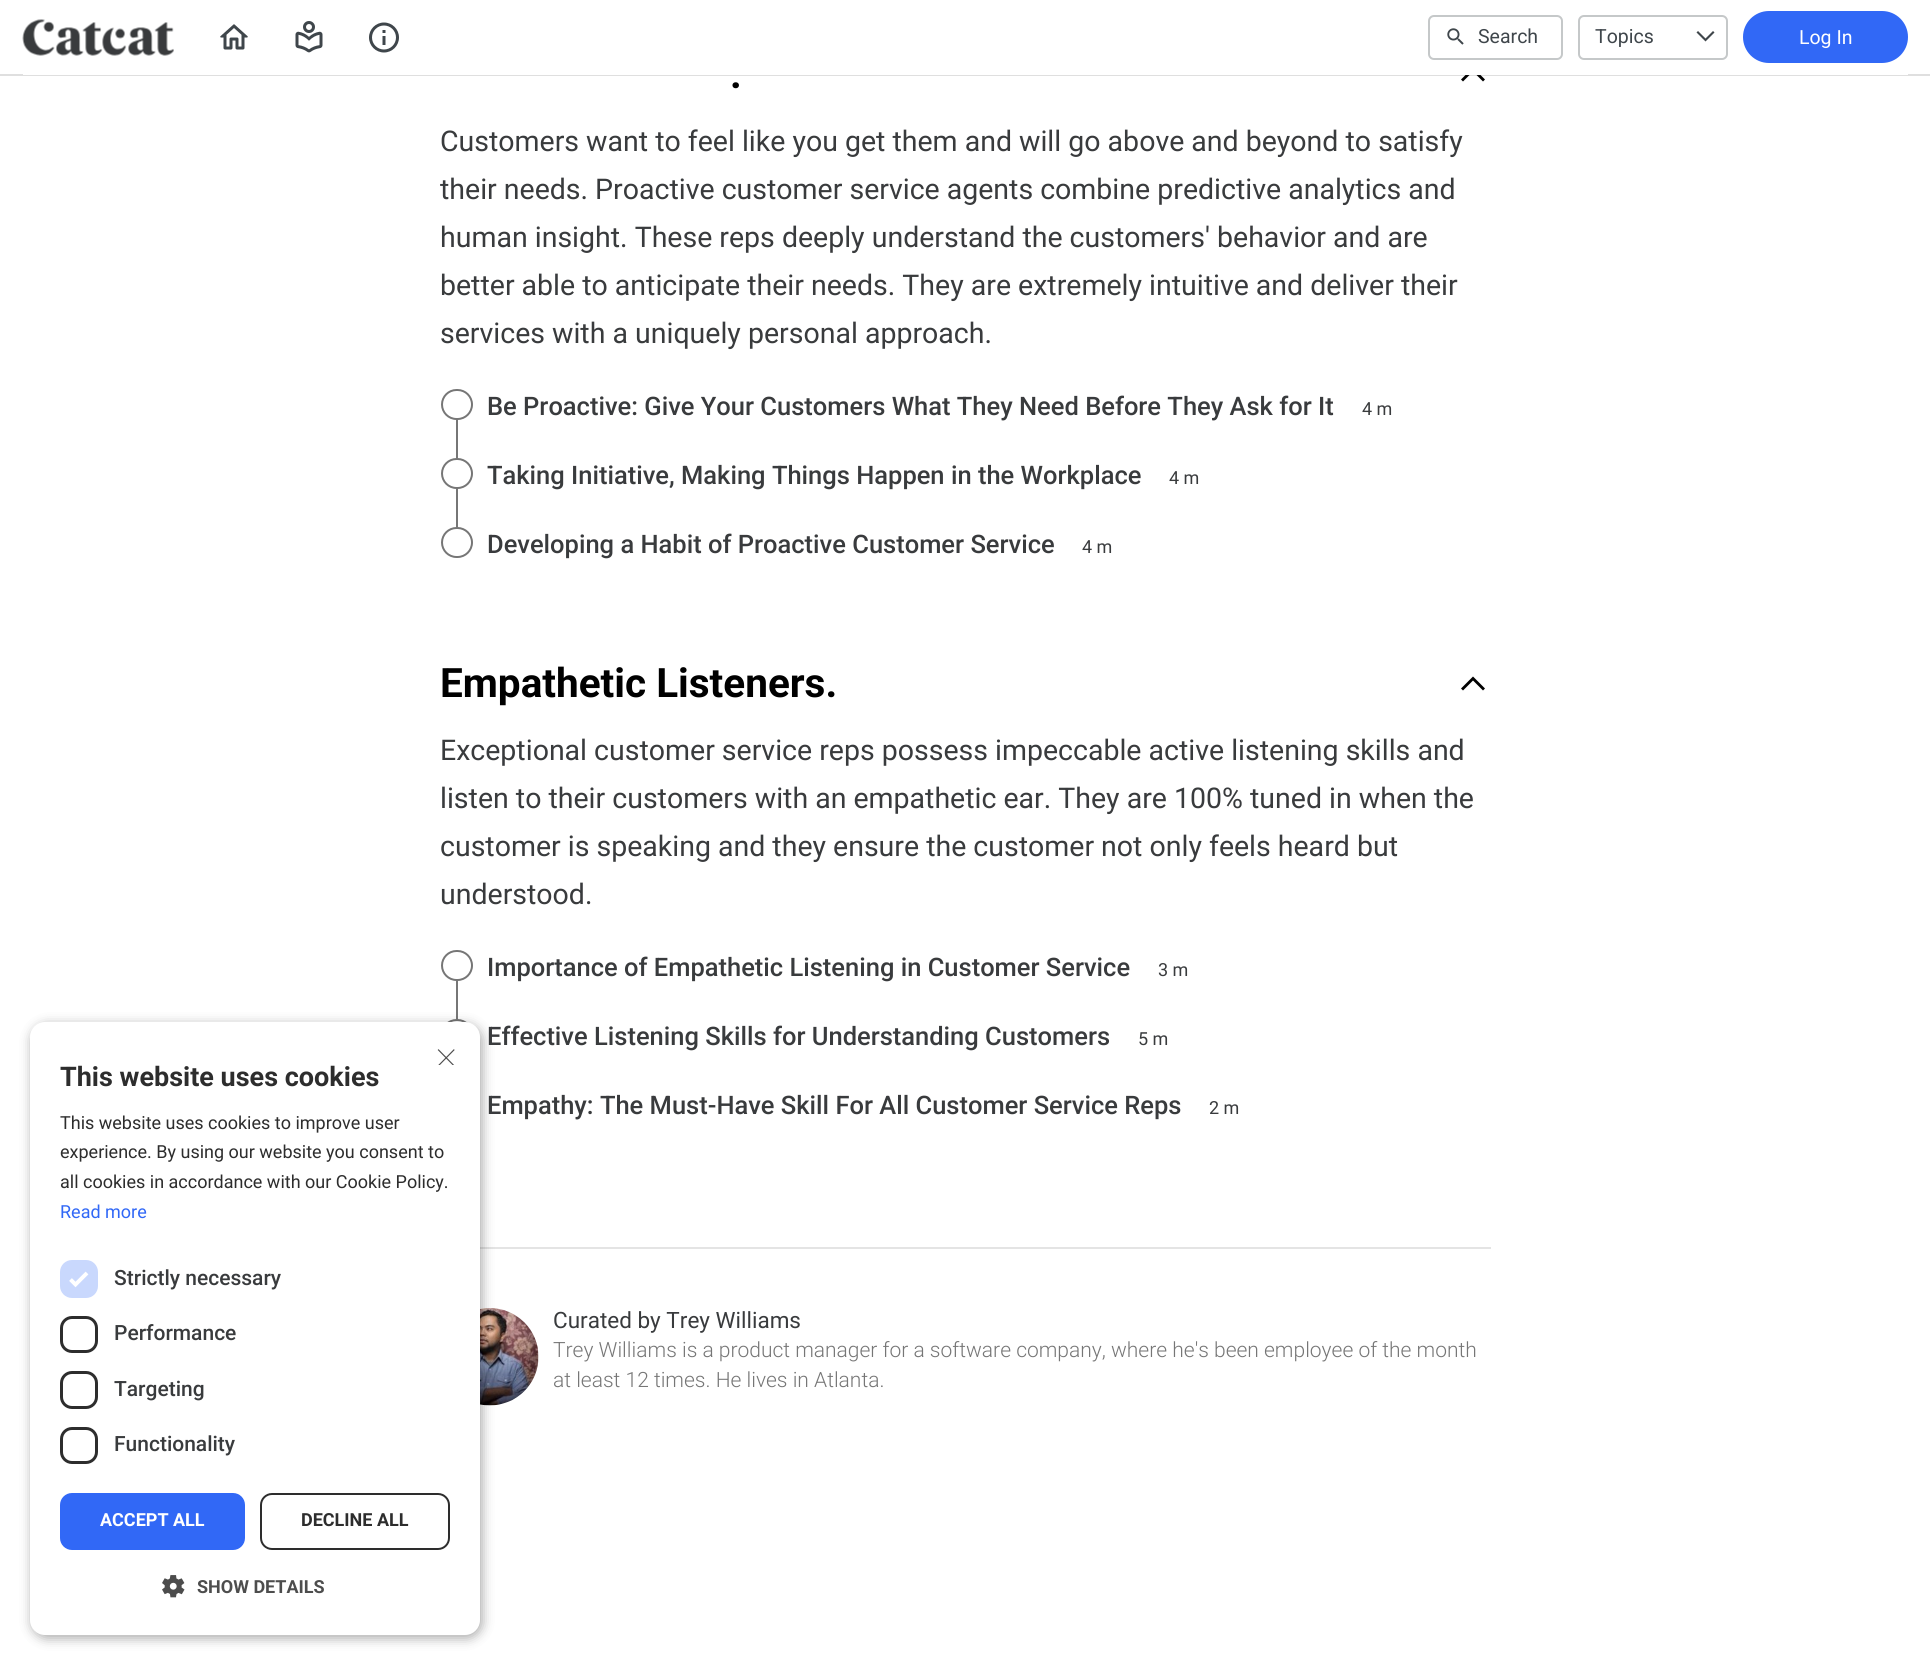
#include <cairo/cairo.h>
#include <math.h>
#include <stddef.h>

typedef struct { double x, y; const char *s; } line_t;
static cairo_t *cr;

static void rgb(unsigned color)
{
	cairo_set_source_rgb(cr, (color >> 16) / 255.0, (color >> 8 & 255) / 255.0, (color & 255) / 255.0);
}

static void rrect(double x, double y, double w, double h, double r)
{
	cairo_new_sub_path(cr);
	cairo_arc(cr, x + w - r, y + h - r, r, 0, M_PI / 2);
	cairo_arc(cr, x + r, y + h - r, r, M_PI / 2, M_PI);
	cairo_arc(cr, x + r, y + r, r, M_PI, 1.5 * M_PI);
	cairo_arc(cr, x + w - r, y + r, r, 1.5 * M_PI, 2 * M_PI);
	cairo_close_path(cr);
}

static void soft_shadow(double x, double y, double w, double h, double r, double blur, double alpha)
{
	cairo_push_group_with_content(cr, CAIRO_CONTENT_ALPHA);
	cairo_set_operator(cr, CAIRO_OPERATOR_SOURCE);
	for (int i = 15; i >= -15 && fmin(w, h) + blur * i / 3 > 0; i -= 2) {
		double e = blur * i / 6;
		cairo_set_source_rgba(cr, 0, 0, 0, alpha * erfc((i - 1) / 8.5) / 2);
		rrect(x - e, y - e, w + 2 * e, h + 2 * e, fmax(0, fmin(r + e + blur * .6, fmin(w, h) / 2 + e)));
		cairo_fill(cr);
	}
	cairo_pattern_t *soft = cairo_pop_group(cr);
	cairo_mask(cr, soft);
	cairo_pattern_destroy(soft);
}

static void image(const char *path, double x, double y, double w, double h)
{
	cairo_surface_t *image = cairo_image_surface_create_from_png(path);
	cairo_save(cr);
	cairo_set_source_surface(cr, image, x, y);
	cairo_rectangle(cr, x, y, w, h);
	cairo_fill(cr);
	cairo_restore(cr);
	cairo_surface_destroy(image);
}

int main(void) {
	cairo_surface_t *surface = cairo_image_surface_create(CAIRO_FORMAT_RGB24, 1930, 1665);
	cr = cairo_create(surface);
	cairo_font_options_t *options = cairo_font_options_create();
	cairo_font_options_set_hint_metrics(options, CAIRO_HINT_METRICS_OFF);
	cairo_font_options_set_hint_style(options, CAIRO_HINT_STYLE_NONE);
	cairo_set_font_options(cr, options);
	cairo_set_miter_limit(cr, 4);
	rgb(0xffffff);
	cairo_paint(cr);
	rgb(0x000000);
	cairo_new_path(cr);
	cairo_move_to(cr, 1483, 81.5);
	cairo_line_to(cr, 1473, 71.5);
	cairo_line_to(cr, 1463, 81.5);
	cairo_line_to(cr, 1461, 79.5);
	cairo_line_to(cr, 1473, 67.5);
	cairo_line_to(cr, 1485, 79.5);
	cairo_close_path(cr);
	cairo_fill(cr);
	rgb(0xffffff);
	cairo_rectangle(cr, 1465, 67, 16, 8);
	cairo_fill(cr);
	cairo_set_source_rgba(cr, 0.102, 0.102, 0.102, 0.14);
	cairo_rectangle(cr, 0, 74, 1930, 2);
	cairo_fill(cr);
	rgb(0xffffff);
	cairo_rectangle(cr, 23, 74, 1885, 1);
	cairo_fill(cr);
	image("img/1.png", 22, 19, 152, 37);
	image("img/2.png", 220, 24, 28, 26);
	image("img/3.png", 295, 21, 28, 32);
	image("img/4.png", 369, 22, 30, 31);
	rrect(1429, 16, 133, 43, 5);
	rgb(0xc5c8c9);
	cairo_stroke(cr);
	image("img/5.png", 1447, 28, 17, 17);
	rrect(1579, 16, 148, 43, 5);
	cairo_stroke(cr);
	rgb(0x3f464b);
	cairo_new_path(cr);
	cairo_move_to(cr, 1698, 31);
	cairo_line_to(cr, 1705.5, 38.5);
	cairo_line_to(cr, 1713, 31);
	cairo_line_to(cr, 1714.5, 32.5);
	cairo_line_to(cr, 1705.5, 41.5);
	cairo_line_to(cr, 1696.5, 32.5);
	cairo_close_path(cr);
	cairo_fill(cr);
	rgb(0x3168f6);
	rrect(1744, 12, 163, 50, 25);
	cairo_fill_preserve(cr);
	cairo_stroke(cr);
	rgb(0x767676);
	cairo_rectangle(cr, 456, 981, 2, 38);
	cairo_fill(cr);
	rrect(442, 1020, 30, 29, 14.5);
	cairo_stroke(cr);
	rgb(0xe4e4e4);
	cairo_rectangle(cr, 480, 1247, 1011, 2);
	cairo_fill(cr);
	image("img/7.png", 480, 1308, 59, 98);
	rgb(0x000000);
	soft_shadow(32, 1025, 450, 613, 15, 6, 0.35);
	rgb(0xffffff);
	rrect(30, 1022, 450, 613, 15);
	cairo_fill(cr);
	rgb(0xc9d8fd);
	rrect(60, 1260, 38, 38, 12);
	cairo_fill(cr);
	cairo_new_path(cr);
	cairo_move_to(cr, 70.5, 1279.5);
	cairo_line_to(cr, 75.5, 1284.5);
	cairo_line_to(cr, 87, 1273);
	rgb(0xffffff);
	cairo_set_line_width(cr, 3.9);
	cairo_stroke(cr);
	rrect(61.5, 1317.5, 35, 34, 10.5);
	rgb(0x2d2d2d);
	cairo_set_line_width(cr, 3);
	cairo_stroke(cr);
	rrect(61.5, 1372.5, 35, 35, 10.5);
	cairo_stroke(cr);
	rrect(61.5, 1428.5, 35, 34, 10.5);
	cairo_stroke(cr);
	rgb(0x3168f6);
	rrect(60, 1493, 185, 57, 12);
	cairo_fill(cr);
	rrect(261, 1494, 188, 55, 11);
	rgb(0x2d2d2d);
	cairo_set_line_width(cr, 2);
	cairo_stroke(cr);
	image("img/6.png", 162, 1575, 23, 23);
	rrect(442, 390, 30, 29, 14.5);
	rgb(0x767676);
	cairo_stroke(cr);
	cairo_rectangle(cr, 456, 420, 2, 38);
	cairo_fill(cr);
	rrect(442, 459, 30, 29, 14.5);
	cairo_stroke(cr);
	cairo_rectangle(cr, 456, 489, 2, 38);
	cairo_fill(cr);
	rrect(442, 528, 30, 29, 14.5);
	cairo_stroke(cr);
	rgb(0x000000);
	cairo_new_path(cr);
	cairo_move_to(cr, 1483, 690.5);
	cairo_line_to(cr, 1473, 680.5);
	cairo_line_to(cr, 1463, 690.5);
	cairo_line_to(cr, 1461, 688.5);
	cairo_line_to(cr, 1473, 676.5);
	cairo_line_to(cr, 1485, 688.5);
	cairo_close_path(cr);
	cairo_fill(cr);
	rrect(442, 951, 30, 29, 14.5);
	rgb(0x767676);
	cairo_stroke(cr);
	cairo_select_font_face(cr, "Roboto", CAIRO_FONT_SLANT_NORMAL, CAIRO_FONT_WEIGHT_NORMAL);
	cairo_set_font_size(cr, 19.5);
	rgb(0x3f464b);
	cairo_move_to(cr, 1478, 43);
	cairo_show_text(cr, "Search");
	cairo_move_to(cr, 1595, 43);
	cairo_show_text(cr, "Topics");
	rgb(0xffffff);
	cairo_move_to(cr, 1799, 44);
	cairo_show_text(cr, "Log In");
	cairo_save(cr);
	cairo_rectangle(cr, 435, 1043, 23, 22);
	cairo_clip(cr);
	cairo_select_font_face(cr, "Roboto Thin", CAIRO_FONT_SLANT_NORMAL, CAIRO_FONT_WEIGHT_NORMAL);
	cairo_set_font_size(cr, 44);
	rgb(0x4d4d4d);
	cairo_move_to(cr, 435, 1067);
	cairo_show_text(cr, "×");
	cairo_restore(cr);
	cairo_select_font_face(cr, "Roboto", CAIRO_FONT_SLANT_NORMAL, CAIRO_FONT_WEIGHT_BOLD);
	cairo_set_font_size(cr, 27);
	rgb(0x2d2d2d);
	cairo_move_to(cr, 60, 1086);
	cairo_show_text(cr, "This website uses cookies");
	cairo_select_font_face(cr, "Roboto", CAIRO_FONT_SLANT_NORMAL, CAIRO_FONT_WEIGHT_NORMAL);
	cairo_set_font_size(cr, 18);
	{
		static const line_t items[] = {
			{60, 1129, "This website uses cookies to improve user"},
			{60, 1158, "experience. By using our website you consent to"},
			{60, 1188, "all cookies in accordance with our Cookie Policy."},
		};
		for (size_t i = 0; i < sizeof items / sizeof *items; i++) {
			cairo_move_to(cr, items[i].x, items[i].y);
			cairo_show_text(cr, items[i].s);
		}
	}
	rgb(0x3168f6);
	cairo_move_to(cr, 60, 1218);
	cairo_show_text(cr, "Read more");
	cairo_select_font_face(cr, "Roboto Medium", CAIRO_FONT_SLANT_NORMAL, CAIRO_FONT_WEIGHT_NORMAL);
	cairo_set_font_size(cr, 21);
	rgb(0x393b3d);
	{
		static const line_t items[] = {
			{114, 1285, "Strictly necessary"},
			{114, 1340, "Performance"},
			{114, 1396, "Targeting"},
			{114, 1451, "Functionality"},
		};
		for (size_t i = 0; i < sizeof items / sizeof *items; i++) {
			cairo_move_to(cr, items[i].x, items[i].y);
			cairo_show_text(cr, items[i].s);
		}
	}
	cairo_select_font_face(cr, "Roboto", CAIRO_FONT_SLANT_NORMAL, CAIRO_FONT_WEIGHT_BOLD);
	cairo_set_font_size(cr, 18);
	rgb(0xffffff);
	cairo_move_to(cr, 100, 1526);
	cairo_show_text(cr, "ACCEPT ALL");
	rgb(0x2d2d2d);
	cairo_move_to(cr, 301, 1526);
	cairo_show_text(cr, "DECLINE ALL");
	rgb(0x4d4d4d);
	cairo_move_to(cr, 197, 1593);
	cairo_show_text(cr, "SHOW DETAILS");
	cairo_set_font_size(cr, 40.5);
	rgb(0x000000);
	cairo_move_to(cr, 730, 88);
	cairo_show_text(cr, ".");
	cairo_select_font_face(cr, "Roboto", CAIRO_FONT_SLANT_NORMAL, CAIRO_FONT_WEIGHT_NORMAL);
	cairo_set_font_size(cr, 28.5);
	rgb(0x393b3d);
	{
		static const line_t items[] = {
			{440, 151, "Customers want to feel like you get them and will go above and beyond to satisfy"},
			{440, 199, "their needs. Proactive customer service agents combine predictive analytics and"},
			{440, 247, "human insight. These reps deeply understand the customers' behavior and are"},
			{440, 295, "better able to anticipate their needs. They are extremely intuitive and deliver their"},
			{440, 343, "services with a uniquely personal approach."},
		};
		for (size_t i = 0; i < sizeof items / sizeof *items; i++) {
			cairo_move_to(cr, items[i].x, items[i].y);
			cairo_show_text(cr, items[i].s);
		}
	}
	cairo_select_font_face(cr, "Roboto Medium", CAIRO_FONT_SLANT_NORMAL, CAIRO_FONT_WEIGHT_NORMAL);
	cairo_set_font_size(cr, 25.5);
	cairo_move_to(cr, 487, 415);
	cairo_show_text(cr, "Be Proactive: Give Your Customers What They Need Before They Ask for It");
	cairo_select_font_face(cr, "Roboto", CAIRO_FONT_SLANT_NORMAL, CAIRO_FONT_WEIGHT_NORMAL);
	cairo_set_font_size(cr, 18);
	cairo_move_to(cr, 1362, 415);
	cairo_show_text(cr, "4 m");
	cairo_select_font_face(cr, "Roboto Medium", CAIRO_FONT_SLANT_NORMAL, CAIRO_FONT_WEIGHT_NORMAL);
	cairo_set_font_size(cr, 25.5);
	cairo_move_to(cr, 487, 484);
	cairo_show_text(cr, "Taking Initiative, Making Things Happen in the Workplace");
	cairo_select_font_face(cr, "Roboto", CAIRO_FONT_SLANT_NORMAL, CAIRO_FONT_WEIGHT_NORMAL);
	cairo_set_font_size(cr, 18);
	cairo_move_to(cr, 1169, 484);
	cairo_show_text(cr, "4 m");
	cairo_select_font_face(cr, "Roboto Medium", CAIRO_FONT_SLANT_NORMAL, CAIRO_FONT_WEIGHT_NORMAL);
	cairo_set_font_size(cr, 25.5);
	cairo_move_to(cr, 487, 553);
	cairo_show_text(cr, "Developing a Habit of Proactive Customer Service");
	cairo_select_font_face(cr, "Roboto", CAIRO_FONT_SLANT_NORMAL, CAIRO_FONT_WEIGHT_NORMAL);
	cairo_set_font_size(cr, 18);
	cairo_move_to(cr, 1082, 553);
	cairo_show_text(cr, "4 m");
	cairo_select_font_face(cr, "Roboto", CAIRO_FONT_SLANT_NORMAL, CAIRO_FONT_WEIGHT_BOLD);
	cairo_set_font_size(cr, 40.5);
	rgb(0x000000);
	cairo_move_to(cr, 440, 697);
	cairo_show_text(cr, "Empathetic Listeners.");
	cairo_select_font_face(cr, "Roboto", CAIRO_FONT_SLANT_NORMAL, CAIRO_FONT_WEIGHT_NORMAL);
	cairo_set_font_size(cr, 28.5);
	rgb(0x393b3d);
	{
		static const line_t items[] = {
			{440, 760, "Exceptional customer service reps possess impeccable active listening skills and"},
			{440, 808, "listen to their customers with an empathetic ear. They are 100% tuned in when the"},
			{440, 856, "customer is speaking and they ensure the customer not only feels heard but"},
			{440, 904, "understood."},
		};
		for (size_t i = 0; i < sizeof items / sizeof *items; i++) {
			cairo_move_to(cr, items[i].x, items[i].y);
			cairo_show_text(cr, items[i].s);
		}
	}
	cairo_select_font_face(cr, "Roboto Medium", CAIRO_FONT_SLANT_NORMAL, CAIRO_FONT_WEIGHT_NORMAL);
	cairo_set_font_size(cr, 25.5);
	cairo_move_to(cr, 487, 976);
	cairo_show_text(cr, "Importance of Empathetic Listening in Customer Service");
	cairo_select_font_face(cr, "Roboto", CAIRO_FONT_SLANT_NORMAL, CAIRO_FONT_WEIGHT_NORMAL);
	cairo_set_font_size(cr, 18);
	cairo_move_to(cr, 1158, 976);
	cairo_show_text(cr, "3 m");
	cairo_select_font_face(cr, "Roboto Medium", CAIRO_FONT_SLANT_NORMAL, CAIRO_FONT_WEIGHT_NORMAL);
	cairo_set_font_size(cr, 25.5);
	cairo_move_to(cr, 487, 1045);
	cairo_show_text(cr, "Effective Listening Skills for Understanding Customers");
	cairo_select_font_face(cr, "Roboto", CAIRO_FONT_SLANT_NORMAL, CAIRO_FONT_WEIGHT_NORMAL);
	cairo_set_font_size(cr, 18);
	cairo_move_to(cr, 1138, 1045);
	cairo_show_text(cr, "5 m");
	cairo_select_font_face(cr, "Roboto Medium", CAIRO_FONT_SLANT_NORMAL, CAIRO_FONT_WEIGHT_NORMAL);
	cairo_set_font_size(cr, 25.5);
	cairo_move_to(cr, 487, 1114);
	cairo_show_text(cr, "Empathy: The Must-Have Skill For All Customer Service Reps");
	cairo_select_font_face(cr, "Roboto", CAIRO_FONT_SLANT_NORMAL, CAIRO_FONT_WEIGHT_NORMAL);
	cairo_set_font_size(cr, 18);
	cairo_move_to(cr, 1209, 1114);
	cairo_show_text(cr, "2 m");
	cairo_set_font_size(cr, 22.5);
	cairo_move_to(cr, 553, 1328);
	cairo_show_text(cr, "Curated by Trey Williams");
	cairo_select_font_face(cr, "Roboto Light", CAIRO_FONT_SLANT_NORMAL, CAIRO_FONT_WEIGHT_NORMAL);
	cairo_set_font_size(cr, 21);
	rgb(0x767676);
	cairo_move_to(cr, 553, 1357);
	cairo_show_text(cr, "Trey Williams is a product manager for a software company, where he's been employee of the month");
	cairo_move_to(cr, 553, 1387);
	cairo_show_text(cr, "at least 12 times. He lives in Atlanta.");
	cairo_surface_write_to_png(surface, "page.png");
	cairo_font_options_destroy(options);
	cairo_destroy(cr);
	cairo_surface_destroy(surface);
	return 0;
}
